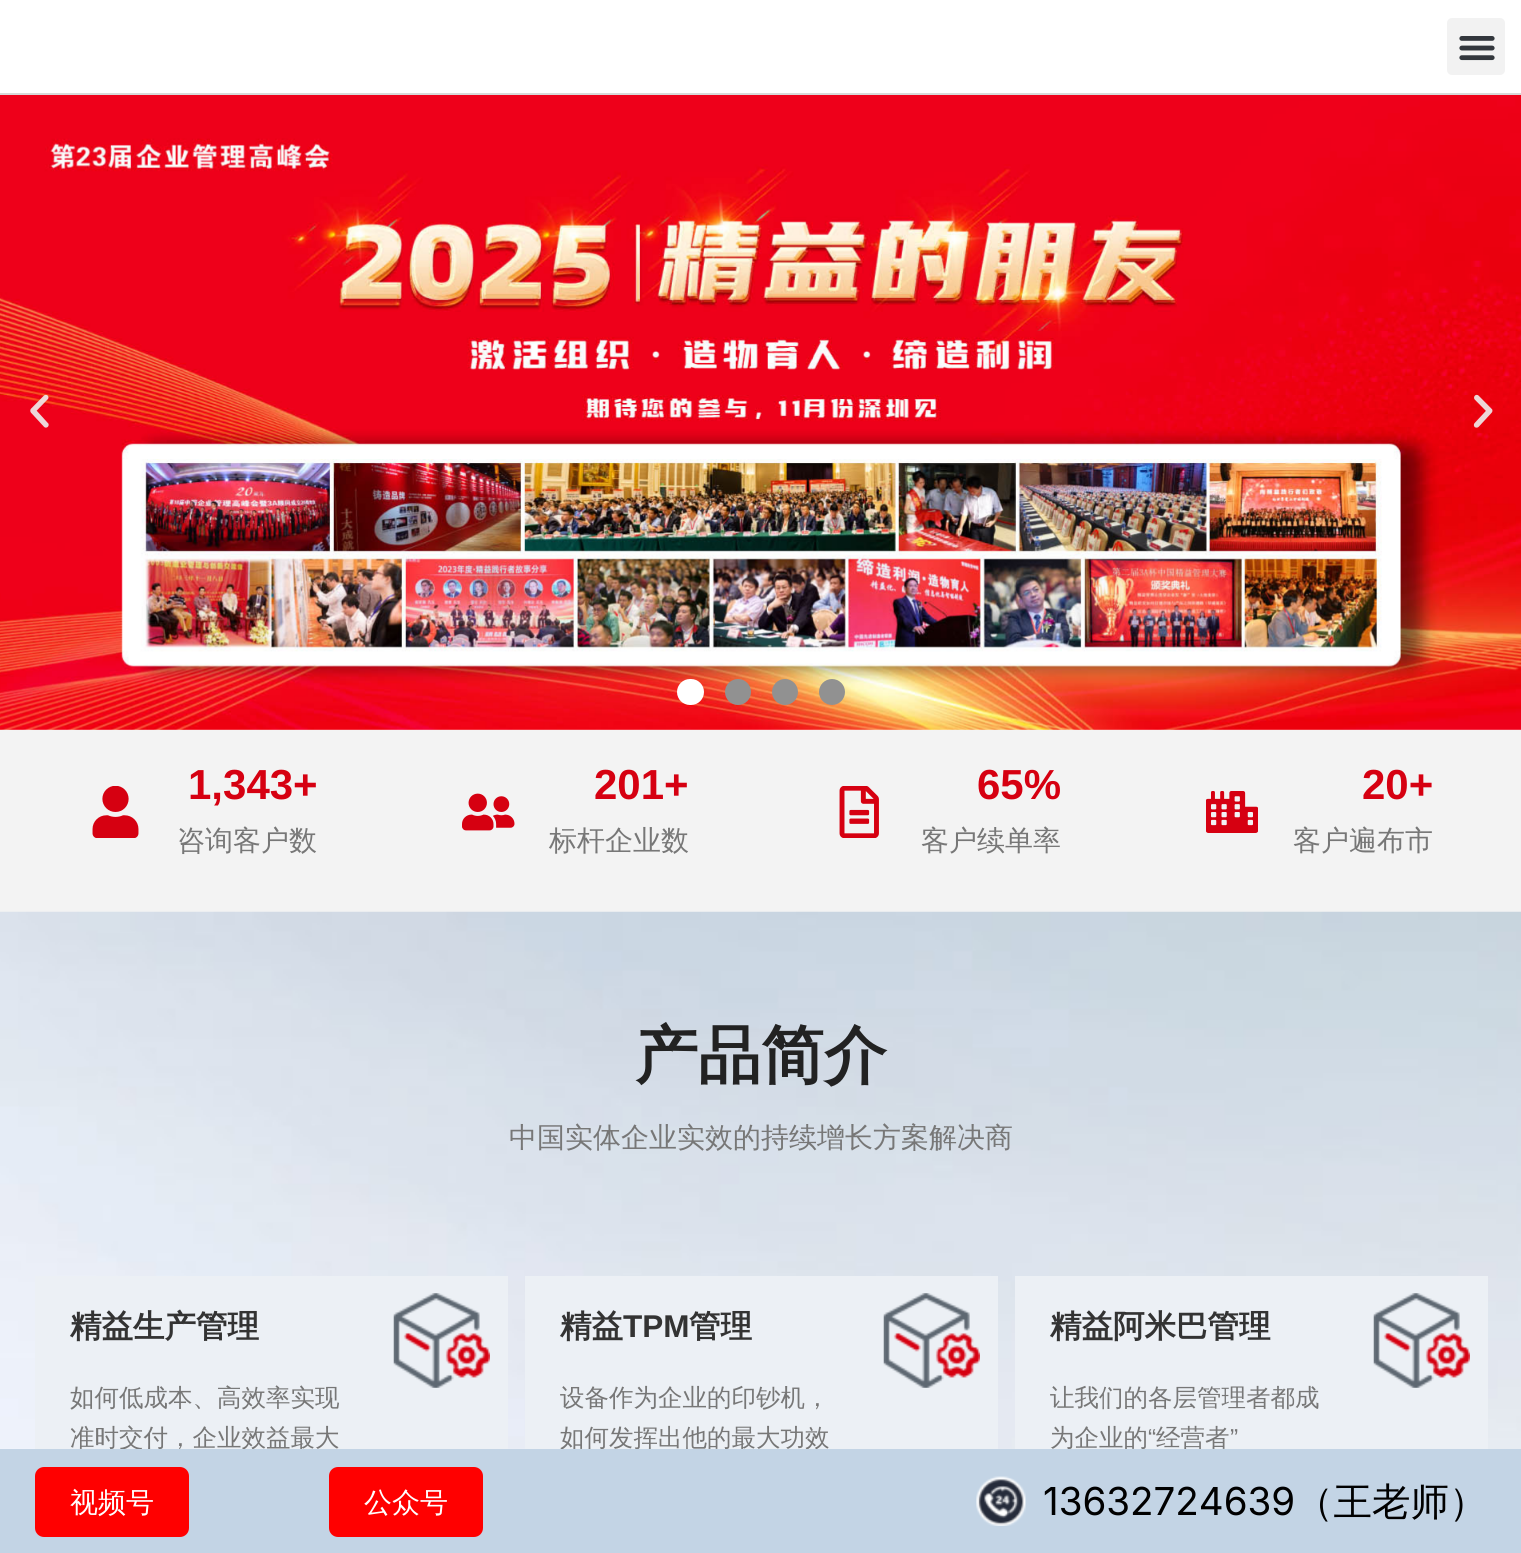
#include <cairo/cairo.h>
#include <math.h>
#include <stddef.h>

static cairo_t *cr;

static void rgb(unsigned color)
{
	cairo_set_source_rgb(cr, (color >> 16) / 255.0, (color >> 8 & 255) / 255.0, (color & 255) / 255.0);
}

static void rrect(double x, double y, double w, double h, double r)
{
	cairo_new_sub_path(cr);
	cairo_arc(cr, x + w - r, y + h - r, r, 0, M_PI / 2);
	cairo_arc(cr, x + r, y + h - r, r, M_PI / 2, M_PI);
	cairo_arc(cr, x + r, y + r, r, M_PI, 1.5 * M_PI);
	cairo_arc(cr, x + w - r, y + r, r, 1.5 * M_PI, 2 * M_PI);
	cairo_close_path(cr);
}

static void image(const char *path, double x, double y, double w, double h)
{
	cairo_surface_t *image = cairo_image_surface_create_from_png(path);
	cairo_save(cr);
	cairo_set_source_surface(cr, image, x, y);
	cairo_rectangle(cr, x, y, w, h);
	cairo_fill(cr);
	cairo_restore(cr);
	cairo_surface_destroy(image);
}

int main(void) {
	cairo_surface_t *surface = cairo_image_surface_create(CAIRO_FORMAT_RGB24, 1521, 1553);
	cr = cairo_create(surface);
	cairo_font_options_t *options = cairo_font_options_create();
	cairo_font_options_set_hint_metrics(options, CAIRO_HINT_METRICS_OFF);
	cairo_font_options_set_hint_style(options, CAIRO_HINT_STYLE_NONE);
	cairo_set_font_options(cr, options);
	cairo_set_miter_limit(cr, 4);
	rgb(0xffffff);
	cairo_paint(cr);
	rgb(0xd8d8d8);
	cairo_rectangle(cr, 0, 93, 1521, 2);
	cairo_fill(cr);
	rgb(0xf2f2f2);
	rrect(1447, 18, 58, 57, 5);
	cairo_fill(cr);
	image("img/1.png", 1459, 36, 36, 25);
	image("img/2.png", 0, 95, 1521, 635);
	image("img/3.png", 30, 394, 19, 34);
	image("img/4.png", 1473, 394, 20, 34);
	rgb(0xffffff);
	rrect(677, 679, 27, 26, 13);
	cairo_fill(cr);
	rgb(0x919191);
	cairo_arc(cr, 738, 692, 13, 0, 2 * M_PI);
	cairo_fill(cr);
	cairo_arc(cr, 785, 692, 13, 0, 2 * M_PI);
	cairo_fill(cr);
	cairo_arc(cr, 832, 692, 13, 0, 2 * M_PI);
	cairo_fill(cr);
	rgb(0xf3f3f3);
	cairo_rectangle(cr, 0, 730, 1521, 182);
	cairo_fill(cr);
	image("img/5.png", 92, 786, 47, 52);
	image("img/6.png", 462, 793, 53, 38);
	image("img/7.png", 839, 786, 40, 52);
	image("img/8.png", 1206, 791, 52, 42);
	image("img/9.png", 0, 911, 1521, 538);
	rgb(0xecf0f5);
	cairo_rectangle(cr, 35, 1276, 473, 173);
	cairo_fill(cr);
	image("img/10.png", 393, 1293, 97, 95);
	cairo_rectangle(cr, 525, 1276, 473, 173);
	cairo_fill(cr);
	image("img/11.png", 883, 1293, 97, 95);
	cairo_rectangle(cr, 1015, 1276, 473, 173);
	cairo_fill(cr);
	image("img/11.png", 1373, 1293, 97, 95);
	cairo_select_font_face(cr, "Liberation Sans", CAIRO_FONT_SLANT_NORMAL, CAIRO_FONT_WEIGHT_BOLD);
	cairo_set_font_size(cr, 42);
	rgb(0xd60011);
	cairo_move_to(cr, 188, 799);
	cairo_show_text(cr, "1,343+");
	cairo_select_font_face(cr, "WenQuanYi Zen Hei Medium", CAIRO_FONT_SLANT_NORMAL, CAIRO_FONT_WEIGHT_NORMAL);
	cairo_set_font_size(cr, 28);
	rgb(0x777777);
	cairo_move_to(cr, 177, 850);
	cairo_show_text(cr, "咨询客户数");
	cairo_select_font_face(cr, "Liberation Sans", CAIRO_FONT_SLANT_NORMAL, CAIRO_FONT_WEIGHT_BOLD);
	cairo_set_font_size(cr, 42);
	rgb(0xd60011);
	cairo_move_to(cr, 594, 799);
	cairo_show_text(cr, "201+");
	cairo_select_font_face(cr, "WenQuanYi Zen Hei Medium", CAIRO_FONT_SLANT_NORMAL, CAIRO_FONT_WEIGHT_NORMAL);
	cairo_set_font_size(cr, 28);
	rgb(0x777777);
	cairo_move_to(cr, 549, 850);
	cairo_show_text(cr, "标杆企业数");
	cairo_select_font_face(cr, "Liberation Sans", CAIRO_FONT_SLANT_NORMAL, CAIRO_FONT_WEIGHT_BOLD);
	cairo_set_font_size(cr, 42);
	rgb(0xd60011);
	cairo_move_to(cr, 977, 799);
	cairo_show_text(cr, "65%");
	cairo_select_font_face(cr, "WenQuanYi Zen Hei Medium", CAIRO_FONT_SLANT_NORMAL, CAIRO_FONT_WEIGHT_NORMAL);
	cairo_set_font_size(cr, 28);
	rgb(0x777777);
	cairo_move_to(cr, 921, 850);
	cairo_show_text(cr, "客户续单率");
	cairo_select_font_face(cr, "Liberation Sans", CAIRO_FONT_SLANT_NORMAL, CAIRO_FONT_WEIGHT_BOLD);
	cairo_set_font_size(cr, 42);
	rgb(0xd60011);
	cairo_move_to(cr, 1362, 799);
	cairo_show_text(cr, "20+");
	cairo_select_font_face(cr, "WenQuanYi Zen Hei Medium", CAIRO_FONT_SLANT_NORMAL, CAIRO_FONT_WEIGHT_NORMAL);
	cairo_set_font_size(cr, 28);
	rgb(0x777777);
	cairo_move_to(cr, 1293, 850);
	cairo_show_text(cr, "客户遍布市");
	cairo_select_font_face(cr, "WenQuanYi Zen Hei", CAIRO_FONT_SLANT_NORMAL, CAIRO_FONT_WEIGHT_BOLD);
	cairo_set_font_size(cr, 63);
	rgb(0x222222);
	cairo_move_to(cr, 635, 1077);
	cairo_show_text(cr, "产品简介");
	cairo_select_font_face(cr, "WenQuanYi Zen Hei Medium", CAIRO_FONT_SLANT_NORMAL, CAIRO_FONT_WEIGHT_NORMAL);
	cairo_set_font_size(cr, 28);
	rgb(0x777777);
	cairo_move_to(cr, 509, 1147);
	cairo_show_text(cr, "中国实体企业实效的持续增长方案解决商");
	cairo_select_font_face(cr, "WenQuanYi Zen Hei", CAIRO_FONT_SLANT_NORMAL, CAIRO_FONT_WEIGHT_BOLD);
	cairo_set_font_size(cr, 31.5);
	rgb(0x333333);
	cairo_move_to(cr, 70, 1337);
	cairo_show_text(cr, "精益生产管理");
	cairo_select_font_face(cr, "WenQuanYi Zen Hei Medium", CAIRO_FONT_SLANT_NORMAL, CAIRO_FONT_WEIGHT_NORMAL);
	cairo_set_font_size(cr, 24.5);
	rgb(0x777777);
	cairo_move_to(cr, 70, 1406);
	cairo_show_text(cr, "如何低成本、高效率实现");
	cairo_move_to(cr, 70, 1446);
	cairo_show_text(cr, "准时交付，企业效益最大");
	cairo_select_font_face(cr, "WenQuanYi Zen Hei", CAIRO_FONT_SLANT_NORMAL, CAIRO_FONT_WEIGHT_BOLD);
	cairo_set_font_size(cr, 31.5);
	rgb(0x333333);
	cairo_move_to(cr, 560, 1337);
	cairo_show_text(cr, "精益");
	cairo_select_font_face(cr, "Liberation Sans", CAIRO_FONT_SLANT_NORMAL, CAIRO_FONT_WEIGHT_BOLD);
	cairo_move_to(cr, 623, 1337);
	cairo_show_text(cr, "TPM");
	cairo_select_font_face(cr, "WenQuanYi Zen Hei", CAIRO_FONT_SLANT_NORMAL, CAIRO_FONT_WEIGHT_BOLD);
	cairo_move_to(cr, 689, 1337);
	cairo_show_text(cr, "管理");
	cairo_select_font_face(cr, "WenQuanYi Zen Hei Medium", CAIRO_FONT_SLANT_NORMAL, CAIRO_FONT_WEIGHT_NORMAL);
	cairo_set_font_size(cr, 24.5);
	rgb(0x777777);
	cairo_move_to(cr, 560, 1406);
	cairo_show_text(cr, "设备作为企业的印钞机，");
	cairo_move_to(cr, 560, 1446);
	cairo_show_text(cr, "如何发挥出他的最大功效");
	cairo_select_font_face(cr, "WenQuanYi Zen Hei", CAIRO_FONT_SLANT_NORMAL, CAIRO_FONT_WEIGHT_BOLD);
	cairo_set_font_size(cr, 31.5);
	rgb(0x333333);
	cairo_move_to(cr, 1050, 1337);
	cairo_show_text(cr, "精益阿米巴管理");
	cairo_select_font_face(cr, "WenQuanYi Zen Hei Medium", CAIRO_FONT_SLANT_NORMAL, CAIRO_FONT_WEIGHT_NORMAL);
	cairo_set_font_size(cr, 24.5);
	rgb(0x777777);
	cairo_move_to(cr, 1050, 1406);
	cairo_show_text(cr, "让我们的各层管理者都成");
	cairo_move_to(cr, 1050, 1446);
	cairo_show_text(cr, "为企业的");
	cairo_select_font_face(cr, "Liberation Sans", CAIRO_FONT_SLANT_NORMAL, CAIRO_FONT_WEIGHT_NORMAL);
	cairo_move_to(cr, 1148, 1446);
	cairo_show_text(cr, "“");
	cairo_select_font_face(cr, "WenQuanYi Zen Hei Medium", CAIRO_FONT_SLANT_NORMAL, CAIRO_FONT_WEIGHT_NORMAL);
	cairo_move_to(cr, 1156, 1446);
	cairo_show_text(cr, "经营者");
	cairo_select_font_face(cr, "Liberation Sans", CAIRO_FONT_SLANT_NORMAL, CAIRO_FONT_WEIGHT_NORMAL);
	cairo_move_to(cr, 1230, 1446);
	cairo_show_text(cr, "”");
	rgb(0xc3d4e5);
	cairo_rectangle(cr, 0, 1449, 1521, 104);
	cairo_fill(cr);
	rgb(0xff0000);
	rrect(35, 1467, 154, 70, 9);
	cairo_fill(cr);
	cairo_select_font_face(cr, "WenQuanYi Zen Hei Medium", CAIRO_FONT_SLANT_NORMAL, CAIRO_FONT_WEIGHT_NORMAL);
	cairo_set_font_size(cr, 28);
	rgb(0xffffff);
	cairo_move_to(cr, 70, 1512);
	cairo_show_text(cr, "视频号");
	rgb(0xff0000);
	rrect(329, 1467, 154, 70, 9);
	cairo_fill(cr);
	rgb(0xffffff);
	cairo_move_to(cr, 364, 1512);
	cairo_show_text(cr, "公众号");
	image("img/12.png", 976, 1476, 50, 50);
	cairo_select_font_face(cr, "Inter", CAIRO_FONT_SLANT_NORMAL, CAIRO_FONT_WEIGHT_NORMAL);
	cairo_set_font_size(cr, 38.5);
	rgb(0x000000);
	cairo_move_to(cr, 1043, 1515);
	cairo_show_text(cr, "13632724639");
	cairo_select_font_face(cr, "WenQuanYi Zen Hei Medium", CAIRO_FONT_SLANT_NORMAL, CAIRO_FONT_WEIGHT_NORMAL);
	cairo_move_to(cr, 1295, 1515);
	cairo_show_text(cr, "（王老师）");
	cairo_surface_write_to_png(surface, "page.png");
	cairo_font_options_destroy(options);
	cairo_destroy(cr);
	cairo_surface_destroy(surface);
	return 0;
}
